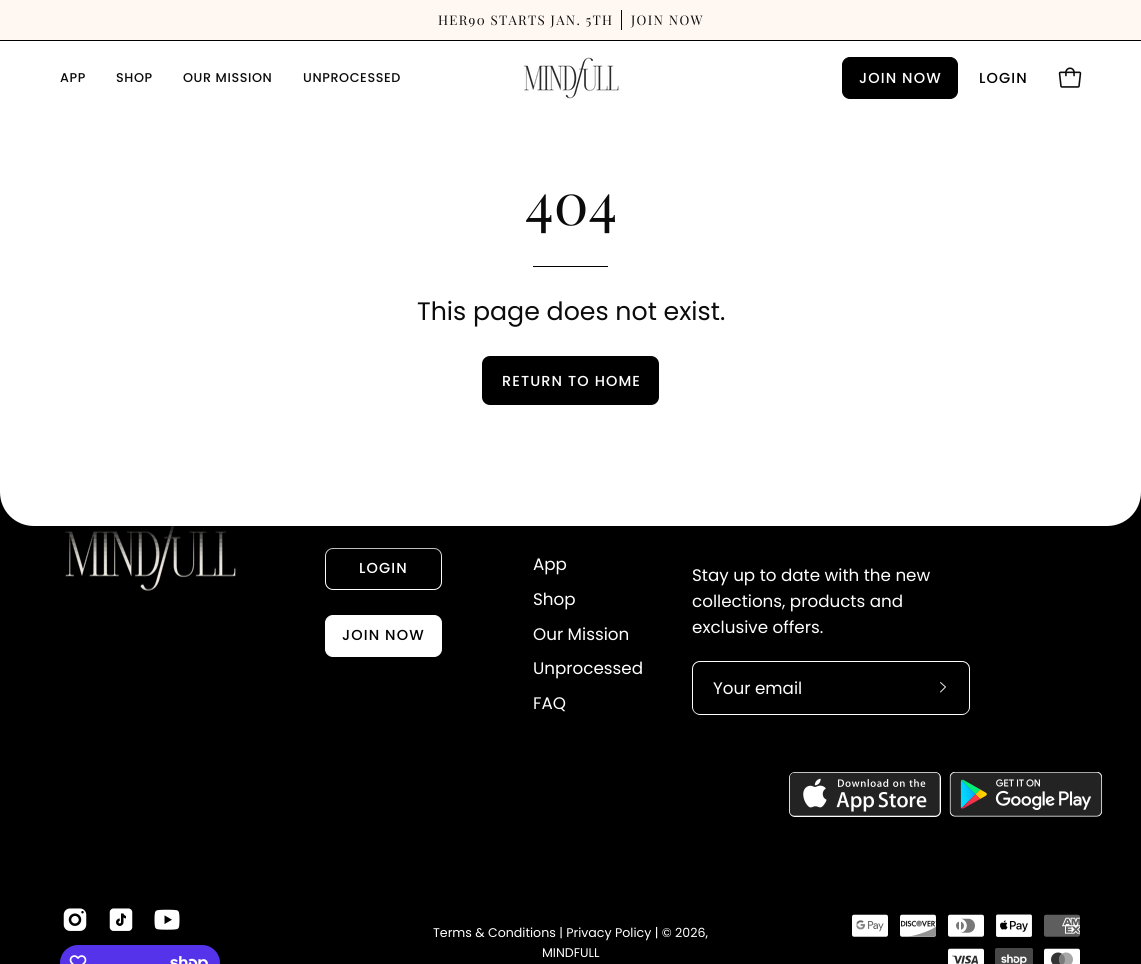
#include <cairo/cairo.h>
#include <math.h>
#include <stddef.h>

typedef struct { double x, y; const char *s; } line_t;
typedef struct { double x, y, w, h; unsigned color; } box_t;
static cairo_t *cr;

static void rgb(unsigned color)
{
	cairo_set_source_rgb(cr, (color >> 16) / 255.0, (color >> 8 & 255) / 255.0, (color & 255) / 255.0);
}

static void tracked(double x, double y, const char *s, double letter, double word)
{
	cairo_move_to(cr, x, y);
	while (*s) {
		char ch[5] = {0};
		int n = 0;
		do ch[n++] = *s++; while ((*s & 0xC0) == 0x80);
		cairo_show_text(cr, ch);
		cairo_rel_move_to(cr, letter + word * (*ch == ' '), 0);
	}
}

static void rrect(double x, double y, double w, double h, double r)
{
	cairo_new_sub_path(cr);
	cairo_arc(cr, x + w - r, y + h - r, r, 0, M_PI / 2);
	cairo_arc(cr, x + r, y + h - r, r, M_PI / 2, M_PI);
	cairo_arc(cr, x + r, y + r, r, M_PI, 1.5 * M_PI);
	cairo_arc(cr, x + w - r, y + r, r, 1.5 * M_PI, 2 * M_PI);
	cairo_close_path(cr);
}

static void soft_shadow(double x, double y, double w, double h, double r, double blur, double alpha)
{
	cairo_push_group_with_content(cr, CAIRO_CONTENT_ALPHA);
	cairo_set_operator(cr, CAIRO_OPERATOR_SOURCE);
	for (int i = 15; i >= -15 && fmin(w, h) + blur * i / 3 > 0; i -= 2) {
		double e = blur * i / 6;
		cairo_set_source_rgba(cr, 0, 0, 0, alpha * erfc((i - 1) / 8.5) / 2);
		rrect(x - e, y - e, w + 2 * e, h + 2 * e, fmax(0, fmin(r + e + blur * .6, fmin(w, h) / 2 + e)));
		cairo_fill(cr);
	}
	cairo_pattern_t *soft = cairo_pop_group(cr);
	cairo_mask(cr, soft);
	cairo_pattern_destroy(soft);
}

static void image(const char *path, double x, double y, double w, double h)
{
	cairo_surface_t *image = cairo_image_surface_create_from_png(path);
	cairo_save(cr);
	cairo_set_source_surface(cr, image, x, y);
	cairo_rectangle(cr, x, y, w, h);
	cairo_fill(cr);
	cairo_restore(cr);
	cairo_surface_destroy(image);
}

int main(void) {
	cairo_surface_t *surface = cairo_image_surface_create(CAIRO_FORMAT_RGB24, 1141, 964);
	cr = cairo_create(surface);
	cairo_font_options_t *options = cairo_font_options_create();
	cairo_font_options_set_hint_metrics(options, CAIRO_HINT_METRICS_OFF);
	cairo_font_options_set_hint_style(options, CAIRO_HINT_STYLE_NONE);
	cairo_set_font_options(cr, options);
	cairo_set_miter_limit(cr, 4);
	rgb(0xffffff);
	cairo_paint(cr);
	{
		static const box_t items[] = {
			{0, 0, 1141, 40, 0xfff8f2},
			{0, 40, 1141, 1, 0x000000},
			{621, 10, 1, 20, 0x0b0b0b},
		};
		for (size_t i = 0; i < sizeof items / sizeof *items; i++) {
			rgb(items[i].color);
			cairo_rectangle(cr, items[i].x, items[i].y, items[i].w, items[i].h);
			cairo_fill(cr);
		}
	}
	image("img/1.png", 523, 57, 96, 42);
	rgb(0x000000);
	rrect(842.5, 57.5, 115, 41, 7.5);
	cairo_fill_preserve(cr);
	cairo_set_line_width(cr, 1);
	cairo_stroke(cr);
	image("img/2.png", 1058, 67, 24, 21);
	cairo_rectangle(cr, 0, 492, 1141, 472);
	cairo_fill(cr);
	image("img/3.png", 65, 526, 171, 65);
	rrect(325.5, 548.5, 116, 41, 7.5);
	rgb(0xffffff);
	cairo_stroke(cr);
	rgb(0x000000);
	soft_shadow(10, 150, 1121, 391, 24, 12.5, 1);
	rgb(0xffffff);
	cairo_new_path(cr);
	cairo_move_to(cr, 0, 115);
	cairo_line_to(cr, 1141, 115);
	cairo_line_to(cr, 1141, 492);
	cairo_curve_to(cr, 1141, 511, 1126, 526, 1107, 526);
	cairo_line_to(cr, 34, 526);
	cairo_curve_to(cr, 15, 526, 0, 511, 0, 492);
	cairo_close_path(cr);
	cairo_fill(cr);
	rgb(0x000000);
	cairo_rectangle(cr, 533, 266, 75, 1);
	cairo_fill(cr);
	rrect(482, 356, 177, 49, 8);
	cairo_fill(cr);
	rgb(0xffffff);
	rrect(325.5, 615.5, 116, 41, 7.5);
	cairo_fill_preserve(cr);
	cairo_stroke(cr);
	cairo_set_fill_rule(cr, CAIRO_FILL_RULE_EVEN_ODD);
	cairo_new_path(cr);
	cairo_move_to(cr, 700, 661);
	cairo_line_to(cr, 916, 661);
	cairo_line_to(cr, 916, 715);
	cairo_line_to(cr, 700, 715);
	cairo_curve_to(cr, 696, 715, 692, 711, 692, 707);
	cairo_line_to(cr, 692, 669);
	cairo_curve_to(cr, 692, 664, 696, 661, 700, 661);
	cairo_close_path(cr);
	cairo_move_to(cr, 700, 662);
	cairo_line_to(cr, 916, 662);
	cairo_line_to(cr, 916, 714);
	cairo_line_to(cr, 700, 714);
	cairo_curve_to(cr, 696, 714, 693, 711, 693, 707);
	cairo_line_to(cr, 693, 669);
	cairo_curve_to(cr, 693, 665, 696, 662, 700, 662);
	cairo_close_path(cr);
	cairo_fill(cr);
	cairo_new_path(cr);
	cairo_move_to(cr, 916, 661);
	cairo_line_to(cr, 962, 661);
	cairo_curve_to(cr, 966, 661, 970, 664, 970, 669);
	cairo_line_to(cr, 970, 707);
	cairo_curve_to(cr, 970, 711, 966, 715, 962, 715);
	cairo_line_to(cr, 916, 715);
	cairo_close_path(cr);
	cairo_move_to(cr, 916, 662);
	cairo_line_to(cr, 962, 662);
	cairo_curve_to(cr, 966, 662, 969, 665, 969, 669);
	cairo_line_to(cr, 969, 707);
	cairo_curve_to(cr, 969, 711, 966, 714, 962, 714);
	cairo_line_to(cr, 916, 714);
	cairo_close_path(cr);
	cairo_fill(cr);
	cairo_new_path(cr);
	cairo_move_to(cr, 940.5, 682.5);
	cairo_line_to(cr, 945.5, 687);
	cairo_line_to(cr, 940.5, 692);
	cairo_set_line_width(cr, 0.9);
	cairo_set_line_cap(cr, CAIRO_LINE_CAP_ROUND);
	cairo_set_line_join(cr, CAIRO_LINE_JOIN_ROUND);
	cairo_stroke(cr);
	image("img/4.png", 789, 772, 152, 45);
	image("img/5.png", 949, 772, 154, 45);
	image("img/6.png", 63, 908, 24, 23);
	image("img/7.png", 109, 908, 24, 23);
	image("img/8.png", 154, 909, 26, 21);
	rgb(0x5433eb);
	rrect(60, 945, 160, 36, 18);
	cairo_fill(cr);
	image("img/9.png", 69, 955, 18, 9);
	image("img/10.png", 170, 956, 38, 8);
	image("img/11.png", 852, 914, 36, 23);
	image("img/12.png", 900, 914, 36, 23);
	image("img/13.png", 948, 914, 36, 23);
	image("img/14.png", 996, 914, 36, 23);
	image("img/15.png", 1044, 914, 36, 23);
	image("img/16.png", 948, 948, 36, 16);
	image("img/17.png", 995, 948, 38, 16);
	image("img/18.png", 1044, 948, 36, 16);
	cairo_select_font_face(cr, "Playfair Display", CAIRO_FONT_SLANT_NORMAL, CAIRO_FONT_WEIGHT_NORMAL);
	cairo_set_font_size(cr, 13.25);
	rgb(0x0b0b0b);
	tracked(438, 25, "HER90 STARTS JAN. 5TH", 1.3, 0);
	tracked(631, 25, "JOIN NOW", 1.3, 0);
	cairo_select_font_face(cr, "Poppins Medium", CAIRO_FONT_SLANT_NORMAL, CAIRO_FONT_WEIGHT_NORMAL);
	cairo_set_font_size(cr, 12.75);
	{
		static const line_t items[] = {
			{60, 82, "APP"},
			{116, 82, "SHOP"},
			{183, 82, "OUR MISSION"},
			{303, 82, "UNPROCESSED"},
		};
		for (size_t i = 0; i < sizeof items / sizeof *items; i++) {
			tracked(items[i].x, items[i].y, items[i].s, 0.6, 0);
		}
	}
	cairo_set_font_size(cr, 14.5);
	rgb(0xffffff);
	tracked(859, 83, "JOIN NOW", 1.1, 0);
	rgb(0x000000);
	tracked(979, 83, "LOGIN", 1.1, 0);
	cairo_select_font_face(cr, "Playfair Display", CAIRO_FONT_SLANT_NORMAL, CAIRO_FONT_WEIGHT_NORMAL);
	cairo_set_font_size(cr, 58);
	rgb(0x0b0b0b);
	cairo_move_to(cr, 525, 225);
	cairo_show_text(cr, "404");
	cairo_select_font_face(cr, "Poppins", CAIRO_FONT_SLANT_NORMAL, CAIRO_FONT_WEIGHT_NORMAL);
	cairo_set_font_size(cr, 25.25);
	cairo_move_to(cr, 417, 320);
	cairo_show_text(cr, "This page does not exist.");
	cairo_select_font_face(cr, "Poppins Medium", CAIRO_FONT_SLANT_NORMAL, CAIRO_FONT_WEIGHT_NORMAL);
	cairo_set_font_size(cr, 14.5);
	rgb(0xffffff);
	tracked(502, 386, "RETURN TO HOME", 1.1, 0);
	tracked(359, 573, "LOGIN", 1.1, 0);
	rgb(0x000000);
	tracked(342, 640, "JOIN NOW", 1.1, 0);
	cairo_select_font_face(cr, "Poppins", CAIRO_FONT_SLANT_NORMAL, CAIRO_FONT_WEIGHT_NORMAL);
	cairo_set_font_size(cr, 16.75);
	rgb(0xffffff);
	{
		static const line_t items[] = {
			{533, 570, "App"},
			{533, 605, "Shop"},
			{533, 640, "Our Mission"},
			{533, 674, "Unprocessed"},
			{533, 709, "FAQ"},
			{692, 581, "Stay up to date with the new"},
			{692, 607, "collections, products and"},
			{692, 633, "exclusive offers."},
			{713, 694, "Your email"},
		};
		for (size_t i = 0; i < sizeof items / sizeof *items; i++) {
			cairo_move_to(cr, items[i].x, items[i].y);
			cairo_show_text(cr, items[i].s);
		}
	}
	cairo_set_font_size(cr, 12.6);
	cairo_move_to(cr, 433, 937);
	cairo_show_text(cr, "Terms & Conditions | Privacy Policy | © 2026,");
	cairo_move_to(cr, 542, 957);
	cairo_show_text(cr, "MINDFULL");
	cairo_surface_write_to_png(surface, "page.png");
	cairo_font_options_destroy(options);
	cairo_destroy(cr);
	cairo_surface_destroy(surface);
	return 0;
}
